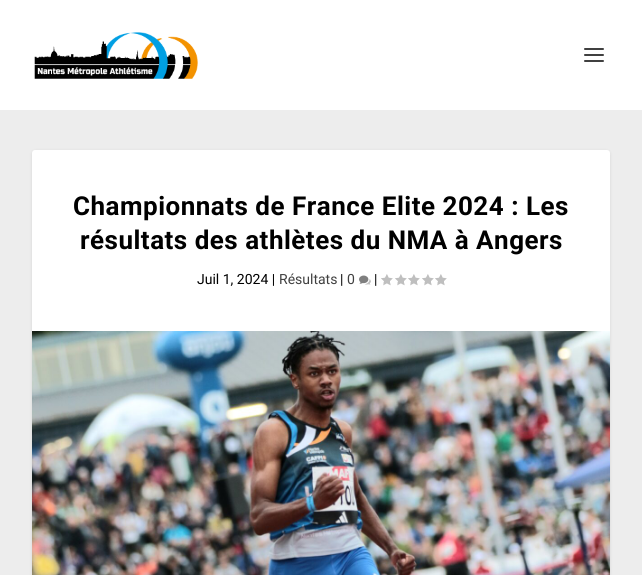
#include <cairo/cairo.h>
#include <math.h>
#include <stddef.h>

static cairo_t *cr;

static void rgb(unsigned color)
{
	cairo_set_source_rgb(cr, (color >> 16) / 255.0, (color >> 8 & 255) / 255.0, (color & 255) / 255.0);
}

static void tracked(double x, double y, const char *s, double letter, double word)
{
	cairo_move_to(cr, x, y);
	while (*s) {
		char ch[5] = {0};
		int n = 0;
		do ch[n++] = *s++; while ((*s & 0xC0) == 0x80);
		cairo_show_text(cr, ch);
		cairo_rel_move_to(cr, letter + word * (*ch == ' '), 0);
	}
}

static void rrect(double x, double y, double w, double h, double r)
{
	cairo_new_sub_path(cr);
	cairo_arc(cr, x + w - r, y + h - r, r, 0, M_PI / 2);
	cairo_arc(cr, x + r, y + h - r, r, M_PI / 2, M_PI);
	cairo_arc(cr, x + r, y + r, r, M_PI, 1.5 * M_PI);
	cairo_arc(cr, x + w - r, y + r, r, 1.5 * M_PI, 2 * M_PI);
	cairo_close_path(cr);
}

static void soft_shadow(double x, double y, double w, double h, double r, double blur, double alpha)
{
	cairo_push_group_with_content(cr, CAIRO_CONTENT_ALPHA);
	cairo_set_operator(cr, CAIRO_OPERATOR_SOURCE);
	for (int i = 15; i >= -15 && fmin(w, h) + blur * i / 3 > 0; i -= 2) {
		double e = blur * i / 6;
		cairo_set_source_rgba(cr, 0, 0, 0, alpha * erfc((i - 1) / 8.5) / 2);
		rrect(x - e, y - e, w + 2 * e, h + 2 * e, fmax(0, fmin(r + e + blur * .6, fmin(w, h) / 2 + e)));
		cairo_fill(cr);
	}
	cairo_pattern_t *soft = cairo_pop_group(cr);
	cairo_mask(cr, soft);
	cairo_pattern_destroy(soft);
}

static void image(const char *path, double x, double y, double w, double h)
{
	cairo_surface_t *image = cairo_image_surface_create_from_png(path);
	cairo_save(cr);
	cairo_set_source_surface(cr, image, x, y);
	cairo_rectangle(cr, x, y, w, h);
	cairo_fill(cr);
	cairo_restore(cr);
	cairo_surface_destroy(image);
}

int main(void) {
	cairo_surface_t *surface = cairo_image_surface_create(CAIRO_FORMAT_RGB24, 642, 575);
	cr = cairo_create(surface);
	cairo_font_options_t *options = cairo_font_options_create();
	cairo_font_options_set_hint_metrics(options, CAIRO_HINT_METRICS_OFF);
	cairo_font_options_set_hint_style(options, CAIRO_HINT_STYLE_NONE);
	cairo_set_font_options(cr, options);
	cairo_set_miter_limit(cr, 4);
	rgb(0xededed);
	cairo_paint(cr);
	rgb(0xffffff);
	cairo_rectangle(cr, 0, 0, 642, 110);
	cairo_fill(cr);
	image("img/1.png", 34, 32, 164, 47);
	rgb(0x404040);
	rrect(584, 48, 20, 2, 1);
	cairo_fill(cr);
	rrect(584, 54, 20, 2, 1);
	cairo_fill(cr);
	rrect(584, 60, 20, 2, 1);
	cairo_fill(cr);
	rgb(0x000000);
	soft_shadow(32, 151, 578, 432, 3, 1.5, 0.1);
	rgb(0xffffff);
	rrect(32, 150, 578, 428, 3);
	cairo_fill(cr);
	image("img/2.png", 359, 275, 12, 10);
	image("img/3.png", 381, 274, 12, 12);
	image("img/3.png", 395, 274, 12, 12);
	image("img/3.png", 408, 274, 12, 12);
	image("img/3.png", 422, 274, 12, 12);
	image("img/3.png", 435, 274, 12, 12);
	image("img/4.png", 32, 331, 578, 244);
	cairo_select_font_face(cr, "Roboto", CAIRO_FONT_SLANT_NORMAL, CAIRO_FONT_WEIGHT_BOLD);
	cairo_set_font_size(cr, 26);
	rgb(0x000000);
	tracked(73, 215, "Championnats de France Elite 2024 : Les", 0.5, 0);
	tracked(80, 249, "résultats des athlètes du NMA à Angers", 0.5, 0);
	cairo_select_font_face(cr, "Roboto", CAIRO_FONT_SLANT_NORMAL, CAIRO_FONT_WEIGHT_NORMAL);
	cairo_set_font_size(cr, 14);
	cairo_move_to(cr, 197, 284);
	cairo_show_text(cr, "Juil 1, 2024 |");
	rgb(0x404040);
	cairo_move_to(cr, 279, 284);
	cairo_show_text(cr, "Résultats");
	rgb(0x000000);
	cairo_move_to(cr, 340, 284);
	cairo_show_text(cr, "|");
	rgb(0x404040);
	cairo_move_to(cr, 347, 284);
	cairo_show_text(cr, "0");
	rgb(0x000000);
	cairo_move_to(cr, 374, 284);
	cairo_show_text(cr, "|");
	cairo_surface_write_to_png(surface, "page.png");
	cairo_font_options_destroy(options);
	cairo_destroy(cr);
	cairo_surface_destroy(surface);
	return 0;
}
